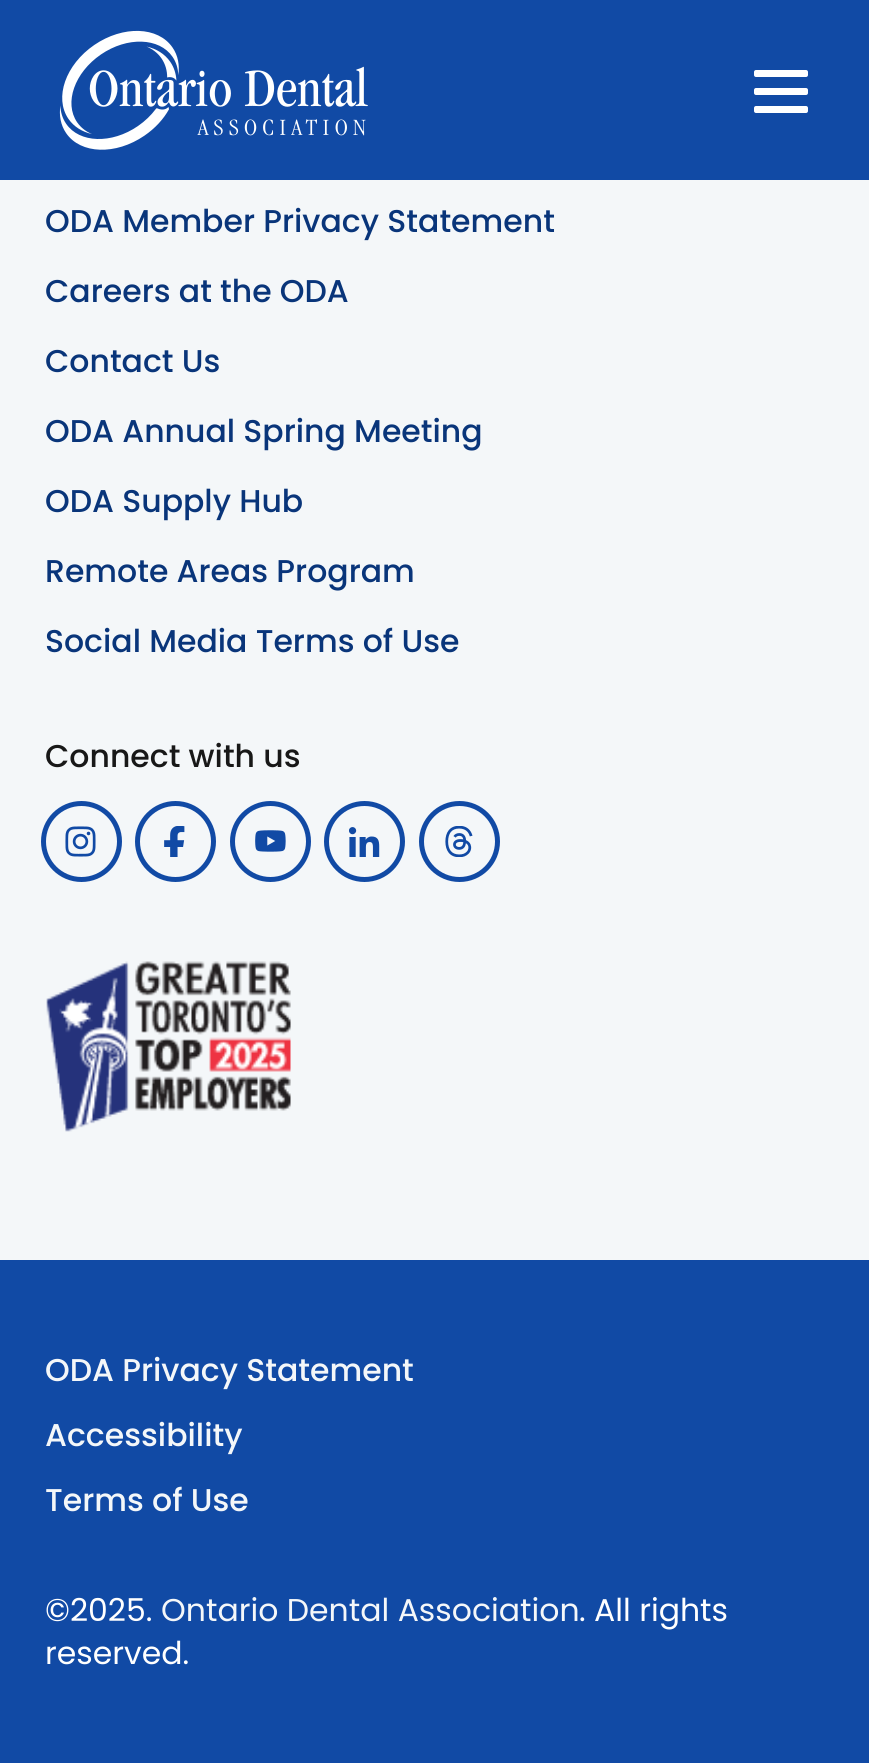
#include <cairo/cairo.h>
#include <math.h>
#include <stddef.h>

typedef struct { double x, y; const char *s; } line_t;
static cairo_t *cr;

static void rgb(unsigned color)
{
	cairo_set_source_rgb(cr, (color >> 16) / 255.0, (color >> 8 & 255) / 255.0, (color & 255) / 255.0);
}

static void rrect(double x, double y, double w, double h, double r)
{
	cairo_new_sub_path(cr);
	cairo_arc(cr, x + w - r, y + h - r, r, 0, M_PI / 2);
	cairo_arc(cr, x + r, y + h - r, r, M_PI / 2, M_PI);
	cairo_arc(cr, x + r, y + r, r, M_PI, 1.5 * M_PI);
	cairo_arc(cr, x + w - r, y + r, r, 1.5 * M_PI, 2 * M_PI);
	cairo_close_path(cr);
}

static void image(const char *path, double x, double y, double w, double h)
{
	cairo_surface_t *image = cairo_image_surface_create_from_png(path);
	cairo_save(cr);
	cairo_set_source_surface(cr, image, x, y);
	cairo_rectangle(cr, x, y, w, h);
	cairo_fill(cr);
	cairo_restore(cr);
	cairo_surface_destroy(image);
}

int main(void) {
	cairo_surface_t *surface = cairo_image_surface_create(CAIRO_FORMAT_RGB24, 869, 1763);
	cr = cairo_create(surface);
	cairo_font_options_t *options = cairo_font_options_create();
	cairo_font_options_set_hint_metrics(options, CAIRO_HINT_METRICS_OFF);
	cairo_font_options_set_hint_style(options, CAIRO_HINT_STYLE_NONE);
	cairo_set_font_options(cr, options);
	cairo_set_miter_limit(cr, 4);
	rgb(0xf4f7f9);
	cairo_paint(cr);
	rgb(0x114aa5);
	cairo_rectangle(cr, 0, 0, 869, 180);
	cairo_fill(cr);
	image("img/1.png", 59, 30, 309, 120);
	rgb(0xffffff);
	rrect(754, 70, 54, 7, 2);
	cairo_fill(cr);
	rrect(754, 88, 54, 7, 2);
	cairo_fill(cr);
	rrect(754, 106, 54, 7, 2);
	cairo_fill(cr);
	cairo_arc(cr, 81.5, 841.5, 38, 0, 2 * M_PI);
	rgb(0x114aa5);
	cairo_set_line_width(cr, 5);
	cairo_stroke(cr);
	image("img/2.png", 65, 826, 31, 31);
	cairo_arc(cr, 175.5, 841.5, 38, 0, 2 * M_PI);
	cairo_stroke(cr);
	image("img/3.png", 164, 826, 21, 31);
	cairo_arc(cr, 270.5, 841.5, 38, 0, 2 * M_PI);
	cairo_stroke(cr);
	image("img/4.png", 255, 830, 31, 22);
	cairo_arc(cr, 364.5, 841.5, 38, 0, 2 * M_PI);
	cairo_stroke(cr);
	image("img/5.png", 349, 827, 31, 30);
	cairo_arc(cr, 459.5, 841.5, 38, 0, 2 * M_PI);
	cairo_stroke(cr);
	image("img/6.png", 445, 826, 28, 31);
	image("img/7.png", 46, 961, 245, 171);
	cairo_rectangle(cr, 0, 1260, 869, 503);
	cairo_fill(cr);
	cairo_select_font_face(cr, "Poppins Medium", CAIRO_FONT_SLANT_NORMAL, CAIRO_FONT_WEIGHT_NORMAL);
	cairo_set_font_size(cr, 31.5);
	rgb(0x09357a);
	{
		static const line_t items[] = {
			{45, 232, "ODA Member Privacy Statement"},
			{45, 302, "Careers at the ODA"},
			{45, 372, "Contact Us"},
			{45, 442, "ODA Annual Spring Meeting"},
			{45, 512, "ODA Supply Hub"},
			{45, 582, "Remote Areas Program"},
			{45, 652, "Social Media Terms of Use"},
		};
		for (size_t i = 0; i < sizeof items / sizeof *items; i++) {
			cairo_move_to(cr, items[i].x, items[i].y);
			cairo_show_text(cr, items[i].s);
		}
	}
	rgb(0x181818);
	cairo_move_to(cr, 45, 767);
	cairo_show_text(cr, "Connect with us");
	rgb(0xf4f7f9);
	{
		static const line_t items[] = {
			{45, 1381, "ODA Privacy Statement"},
			{45, 1446, "Accessibility"},
			{45, 1511, "Terms of Use"},
		};
		for (size_t i = 0; i < sizeof items / sizeof *items; i++) {
			cairo_move_to(cr, items[i].x, items[i].y);
			cairo_show_text(cr, items[i].s);
		}
	}
	cairo_select_font_face(cr, "Poppins", CAIRO_FONT_SLANT_NORMAL, CAIRO_FONT_WEIGHT_NORMAL);
	rgb(0xffffff);
	cairo_move_to(cr, 45, 1621);
	cairo_show_text(cr, "©2025.");
	rgb(0xf4f7f9);
	cairo_move_to(cr, 161, 1621);
	cairo_show_text(cr, "Ontario Dental Association");
	rgb(0xffffff);
	cairo_move_to(cr, 579, 1621);
	cairo_show_text(cr, ". All rights");
	cairo_move_to(cr, 45, 1664);
	cairo_show_text(cr, "reserved.");
	cairo_surface_write_to_png(surface, "page.png");
	cairo_font_options_destroy(options);
	cairo_destroy(cr);
	cairo_surface_destroy(surface);
	return 0;
}
